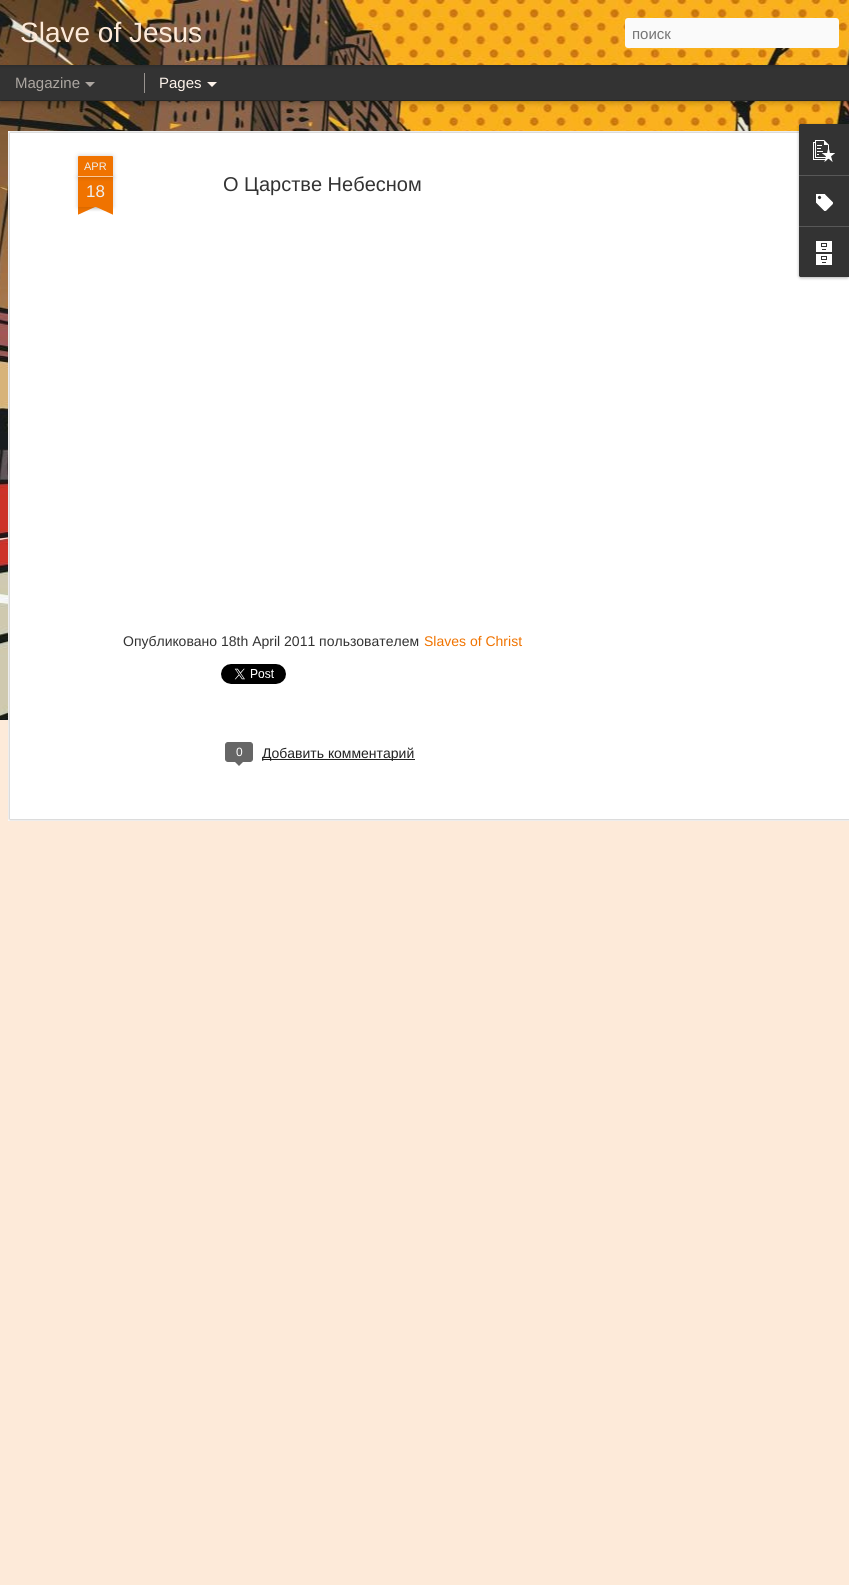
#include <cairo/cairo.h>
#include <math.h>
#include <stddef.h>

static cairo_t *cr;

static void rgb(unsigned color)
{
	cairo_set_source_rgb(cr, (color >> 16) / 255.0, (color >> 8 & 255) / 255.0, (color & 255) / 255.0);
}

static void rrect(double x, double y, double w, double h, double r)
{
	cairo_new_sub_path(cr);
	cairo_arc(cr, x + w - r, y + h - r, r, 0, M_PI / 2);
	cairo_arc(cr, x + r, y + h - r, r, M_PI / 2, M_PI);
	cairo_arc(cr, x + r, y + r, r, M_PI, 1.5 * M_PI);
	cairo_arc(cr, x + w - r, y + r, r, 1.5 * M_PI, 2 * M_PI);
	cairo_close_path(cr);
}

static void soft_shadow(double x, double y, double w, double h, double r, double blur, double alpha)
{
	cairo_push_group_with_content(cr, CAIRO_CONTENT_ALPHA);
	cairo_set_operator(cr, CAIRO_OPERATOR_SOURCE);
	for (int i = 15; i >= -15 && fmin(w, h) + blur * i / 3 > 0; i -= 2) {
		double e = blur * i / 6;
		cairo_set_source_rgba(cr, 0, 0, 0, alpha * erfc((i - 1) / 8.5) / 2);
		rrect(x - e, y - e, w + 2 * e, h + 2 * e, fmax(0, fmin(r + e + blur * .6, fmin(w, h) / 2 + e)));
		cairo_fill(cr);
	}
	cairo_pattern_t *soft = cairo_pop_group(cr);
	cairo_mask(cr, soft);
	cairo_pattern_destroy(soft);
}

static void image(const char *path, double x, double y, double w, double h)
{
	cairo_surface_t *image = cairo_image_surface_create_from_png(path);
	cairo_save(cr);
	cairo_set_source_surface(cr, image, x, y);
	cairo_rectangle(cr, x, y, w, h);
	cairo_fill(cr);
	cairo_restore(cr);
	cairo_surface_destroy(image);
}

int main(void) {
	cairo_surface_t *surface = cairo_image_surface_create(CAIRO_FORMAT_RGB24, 849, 1585);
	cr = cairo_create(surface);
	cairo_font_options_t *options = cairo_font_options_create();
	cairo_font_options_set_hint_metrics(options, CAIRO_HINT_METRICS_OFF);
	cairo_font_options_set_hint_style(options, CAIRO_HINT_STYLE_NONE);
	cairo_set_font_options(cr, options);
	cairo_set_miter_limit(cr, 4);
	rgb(0x333333);
	cairo_paint(cr);
	image("img/2.png", 0, 101, 849, 619);
	rgb(0x000000);
	soft_shadow(0, 65, 849, 35, 0, 4, 0.5);
	rgb(0x333333);
	cairo_rectangle(cr, 0, 65, 849, 35);
	cairo_fill(cr);
	rgb(0x98938f);
	cairo_rectangle(cr, 144, 73, 1, 20);
	cairo_fill(cr);
	rgb(0x000000);
	soft_shadow(0, 0, 849, 65, 0, 2.5, 0.3);
	image("img/1.png", 0, 0, 849, 65);
	rgb(0xfafafa);
	rrect(625, 18, 214, 30, 3);
	cairo_fill(cr);
	rgb(0xaca6a1);
	cairo_new_path(cr);
	cairo_move_to(cr, 85, 82);
	cairo_line_to(cr, 95, 82);
	cairo_line_to(cr, 90, 87);
	cairo_close_path(cr);
	cairo_fill(cr);
	rgb(0xfdf3eb);
	cairo_new_path(cr);
	cairo_move_to(cr, 207, 82);
	cairo_line_to(cr, 217, 82);
	cairo_line_to(cr, 212, 87);
	cairo_close_path(cr);
	cairo_fill(cr);
	rgb(0xfdead9);
	cairo_rectangle(cr, 0, 720, 849, 865);
	cairo_fill(cr);
	rgb(0xffffff);
	cairo_rectangle(cr, 8, 131, 841, 690);
	cairo_fill(cr);
	image("img/3.png", 8, 131, 841, 690);
	rgb(0x000000);
	soft_shadow(78, 177, 35, 30, 0, 2.5, 0.2);
	rgb(0xf07300);
	cairo_rectangle(cr, 78, 177, 35, 30);
	cairo_fill(cr);
	rgb(0x000000);
	soft_shadow(78, 156, 35, 21, 1, 2.5, 0.2);
	rgb(0xf07300);
	cairo_new_path(cr);
	cairo_move_to(cr, 79, 156);
	cairo_line_to(cr, 112, 156);
	cairo_curve_to(cr, 112.5, 156, 113, 156.5, 113, 157);
	cairo_line_to(cr, 113, 177);
	cairo_line_to(cr, 78, 177);
	cairo_line_to(cr, 78, 157);
	cairo_curve_to(cr, 78, 156.5, 78.5, 156, 79, 156);
	cairo_close_path(cr);
	cairo_fill(cr);
	rgb(0xf9c799);
	cairo_rectangle(cr, 78, 176, 35, 1);
	cairo_fill(cr);
	cairo_save(cr);
	cairo_rectangle(cr, 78, 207, 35, 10);
	cairo_clip(cr);
	rgb(0x000000);
	soft_shadow(69, 197, 50, 10, 0, 2.5, 0.2);
	cairo_restore(cr);
	cairo_save(cr);
	cairo_rectangle(cr, 78, 207, 35, 10);
	cairo_clip(cr);
	rgb(0xf07300);
	cairo_new_path(cr);
	cairo_move_to(cr, 69, 208);
	cairo_line_to(cr, 115, 187);
	cairo_line_to(cr, 119, 196);
	cairo_line_to(cr, 73, 217);
	cairo_close_path(cr);
	cairo_fill(cr);
	cairo_restore(cr);
	cairo_save(cr);
	cairo_rectangle(cr, 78, 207, 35, 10);
	cairo_clip(cr);
	rgb(0x000000);
	soft_shadow(72, 197, 50, 10, 0, 2.5, 0.2);
	cairo_restore(cr);
	cairo_save(cr);
	cairo_rectangle(cr, 78, 207, 35, 10);
	cairo_clip(cr);
	rgb(0xf07300);
	cairo_new_path(cr);
	cairo_move_to(cr, 76, 187);
	cairo_line_to(cr, 122, 208);
	cairo_line_to(cr, 118, 217);
	cairo_line_to(cr, 72, 196);
	cairo_close_path(cr);
	cairo_fill(cr);
	cairo_restore(cr);
	image("img/4.png", 221, 664, 65, 20);
	rgb(0x666666);
	rrect(225.5, 742.5, 27, 19, 2.5);
	cairo_fill_preserve(cr);
	cairo_set_line_width(cr, 1);
	cairo_stroke(cr);
	cairo_new_path(cr);
	cairo_move_to(cr, 234, 761);
	cairo_line_to(cr, 244, 761);
	cairo_line_to(cr, 239, 766);
	cairo_close_path(cr);
	cairo_fill(cr);
	rgb(0x222222);
	cairo_rectangle(cr, 262, 759, 153, 1);
	cairo_fill(cr);
	rgb(0x000000);
	soft_shadow(799, 125, 50, 153, 2, 1.5, 0.3);
	rgb(0x333333);
	cairo_new_path(cr);
	cairo_move_to(cr, 801, 124);
	cairo_line_to(cr, 849, 124);
	cairo_line_to(cr, 849, 277);
	cairo_line_to(cr, 801, 277);
	cairo_curve_to(cr, 800, 277, 799, 276, 799, 275);
	cairo_line_to(cr, 799, 126);
	cairo_curve_to(cr, 799, 125, 800, 124, 801, 124);
	cairo_close_path(cr);
	cairo_fill(cr);
	cairo_new_path(cr);
	cairo_move_to(cr, 801, 124);
	cairo_line_to(cr, 849, 124);
	cairo_line_to(cr, 849, 175);
	cairo_line_to(cr, 799, 175);
	cairo_line_to(cr, 799, 126);
	cairo_curve_to(cr, 799, 125, 800, 124, 801, 124);
	cairo_close_path(cr);
	cairo_fill(cr);
	image("img/5.png", 813, 140, 22, 22);
	rgb(0x585858);
	cairo_rectangle(cr, 799, 175, 50, 1);
	cairo_fill(cr);
	image("img/6.png", 816, 194, 17, 17);
	rgb(0x333333);
	cairo_new_path(cr);
	cairo_move_to(cr, 799, 226);
	cairo_line_to(cr, 849, 226);
	cairo_line_to(cr, 849, 277);
	cairo_line_to(cr, 801, 277);
	cairo_curve_to(cr, 800, 277, 799, 276, 799, 275);
	cairo_close_path(cr);
	cairo_fill(cr);
	rgb(0x585858);
	cairo_rectangle(cr, 799, 226, 50, 1);
	cairo_fill(cr);
	image("img/7.png", 816, 241, 16, 24);
	cairo_select_font_face(cr, "Liberation Sans", CAIRO_FONT_SLANT_NORMAL, CAIRO_FONT_WEIGHT_NORMAL);
	cairo_set_font_size(cr, 28);
	rgb(0xfdead9);
	cairo_move_to(cr, 20, 42);
	cairo_show_text(cr, "Slave of Jesus");
	cairo_set_font_size(cr, 15);
	rgb(0x757575);
	cairo_move_to(cr, 632, 39);
	cairo_show_text(cr, "поиск");
	rgb(0xaca6a1);
	cairo_move_to(cr, 15, 88);
	cairo_show_text(cr, "Magazine");
	rgb(0xfdf3eb);
	cairo_move_to(cr, 159, 88);
	cairo_show_text(cr, "Pages");
	cairo_set_font_size(cr, 11);
	rgb(0xeeeeee);
	cairo_move_to(cr, 84, 170);
	cairo_show_text(cr, "APR");
	cairo_set_font_size(cr, 17);
	cairo_move_to(cr, 86, 197);
	cairo_show_text(cr, "18");
	cairo_set_font_size(cr, 20);
	rgb(0x333333);
	cairo_move_to(cr, 223, 191);
	cairo_show_text(cr, "О Царстве Небесном");
	cairo_set_font_size(cr, 14);
	cairo_move_to(cr, 123, 646);
	cairo_show_text(cr, "Опубликовано 18th April 2011 пользователем");
	rgb(0xf07300);
	cairo_move_to(cr, 424, 646);
	cairo_show_text(cr, "Slaves of Christ");
	cairo_set_font_size(cr, 12);
	rgb(0xffffff);
	cairo_move_to(cr, 236, 756);
	cairo_show_text(cr, "0");
	cairo_set_font_size(cr, 14);
	rgb(0x222222);
	cairo_move_to(cr, 262, 758);
	cairo_show_text(cr, "Добавить комментарий");
	cairo_surface_write_to_png(surface, "page.png");
	cairo_font_options_destroy(options);
	cairo_destroy(cr);
	cairo_surface_destroy(surface);
	return 0;
}
